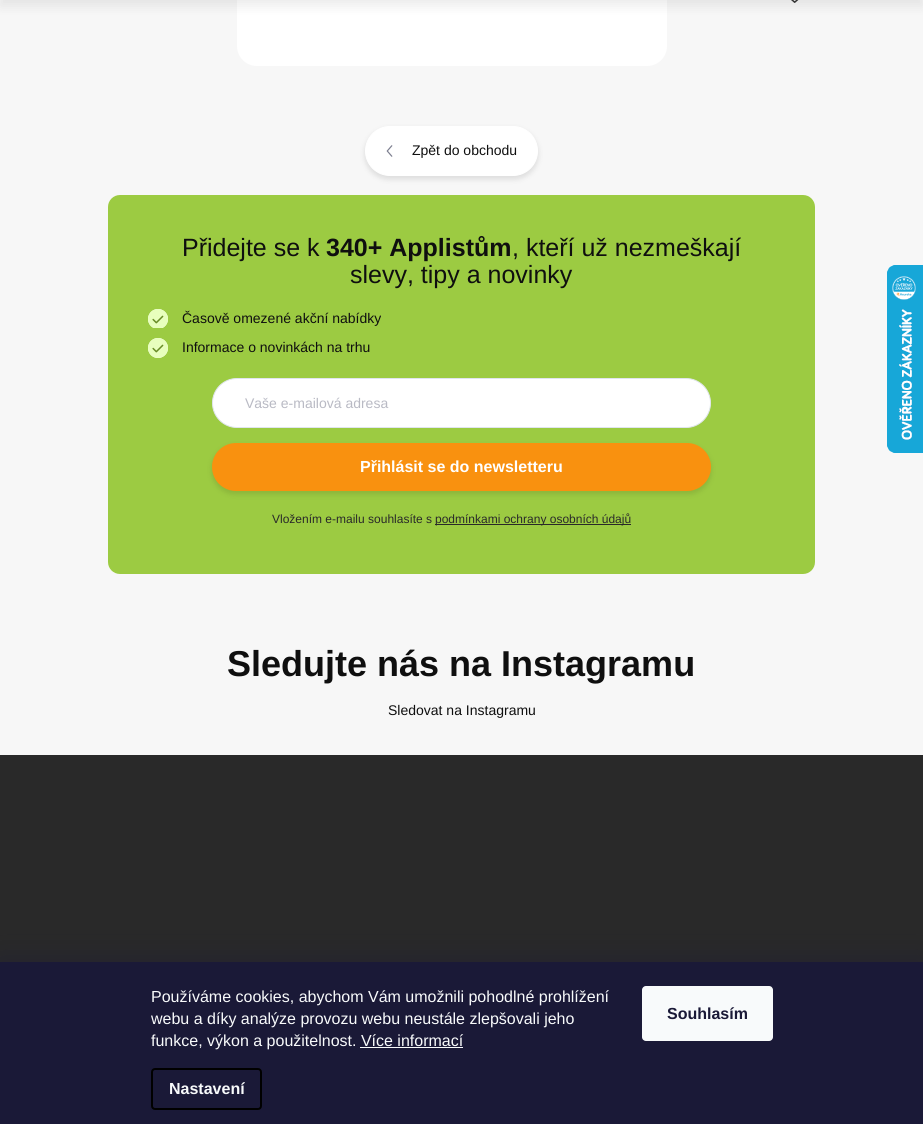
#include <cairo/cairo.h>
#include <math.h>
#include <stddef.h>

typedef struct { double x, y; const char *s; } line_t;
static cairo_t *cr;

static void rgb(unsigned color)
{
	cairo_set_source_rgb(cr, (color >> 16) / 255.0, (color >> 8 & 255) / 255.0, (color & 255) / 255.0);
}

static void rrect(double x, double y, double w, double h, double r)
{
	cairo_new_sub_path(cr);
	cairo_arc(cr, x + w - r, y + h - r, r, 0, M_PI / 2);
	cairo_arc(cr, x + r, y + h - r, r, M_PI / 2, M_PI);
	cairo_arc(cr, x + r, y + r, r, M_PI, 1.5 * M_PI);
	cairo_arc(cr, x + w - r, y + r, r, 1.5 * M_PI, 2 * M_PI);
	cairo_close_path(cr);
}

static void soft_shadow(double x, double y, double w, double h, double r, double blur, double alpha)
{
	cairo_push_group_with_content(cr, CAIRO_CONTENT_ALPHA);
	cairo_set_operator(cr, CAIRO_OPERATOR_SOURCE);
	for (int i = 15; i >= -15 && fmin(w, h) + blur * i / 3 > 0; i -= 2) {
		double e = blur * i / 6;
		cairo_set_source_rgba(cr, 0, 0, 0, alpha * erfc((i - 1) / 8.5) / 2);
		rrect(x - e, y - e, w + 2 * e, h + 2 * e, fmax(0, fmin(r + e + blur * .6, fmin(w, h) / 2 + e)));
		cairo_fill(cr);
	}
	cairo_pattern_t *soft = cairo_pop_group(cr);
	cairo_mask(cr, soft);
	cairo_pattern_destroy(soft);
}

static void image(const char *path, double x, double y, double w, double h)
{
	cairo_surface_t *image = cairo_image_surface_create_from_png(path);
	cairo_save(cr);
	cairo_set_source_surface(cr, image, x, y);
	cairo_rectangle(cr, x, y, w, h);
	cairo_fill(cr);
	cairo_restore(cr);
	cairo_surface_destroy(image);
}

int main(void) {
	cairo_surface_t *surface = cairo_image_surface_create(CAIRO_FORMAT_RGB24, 923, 1124);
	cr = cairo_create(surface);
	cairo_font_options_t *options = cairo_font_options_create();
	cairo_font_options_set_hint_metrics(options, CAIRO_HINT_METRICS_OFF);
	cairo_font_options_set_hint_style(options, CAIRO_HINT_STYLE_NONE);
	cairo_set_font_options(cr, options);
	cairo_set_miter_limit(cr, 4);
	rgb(0xf7f7f7);
	cairo_paint(cr);
	rgb(0xffffff);
	rrect(237, -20, 430, 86, 20);
	cairo_fill(cr);
	rgb(0x000000);
	soft_shadow(0, -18, 923, 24, 0, 6, 0.08);
	image("img/1.png", 791, 0, 8, 3);
	soft_shadow(365, 129, 173, 50, 25, 3, 0.12);
	rgb(0xffffff);
	rrect(365.5, 126.5, 172, 49, 24.5);
	cairo_fill_preserve(cr);
	cairo_set_line_width(cr, 1);
	cairo_stroke(cr);
	image("img/2.png", 386, 145, 7, 12);
	rgb(0x9ccb42);
	rrect(108, 195, 707, 379, 12);
	cairo_fill(cr);
	image("img/3.png", 148, 309, 20, 19);
	image("img/4.png", 148, 338, 20, 20);
	rgb(0xffffff);
	rrect(212.5, 378.5, 498, 49, 24.5);
	cairo_fill_preserve(cr);
	rgb(0xe0e5ee);
	cairo_stroke(cr);
	rgb(0x000000);
	soft_shadow(212, 446, 499, 48, 24, 3, 0.12);
	rgb(0xf9910f);
	rrect(212, 443, 499, 48, 24);
	cairo_fill(cr);
	rgb(0x292929);
	cairo_rectangle(cr, 435, 524, 196, 1);
	cairo_fill(cr);
	cairo_rectangle(cr, 0, 755, 923, 207);
	cairo_fill(cr);
	image("img/5.png", 887, 265, 36, 188);
	rgb(0x1b1939);
	soft_shadow(0, 962, 923, 162, 0, 15, 0.5);
	rgb(0x1a1937);
	cairo_rectangle(cr, 0, 962, 923, 162);
	cairo_fill(cr);
	rgb(0xf8fafb);
	cairo_rectangle(cr, 360, 1047, 103, 1);
	cairo_fill(cr);
	rrect(152, 1069, 109, 40, 3);
	rgb(0x000000);
	cairo_set_line_width(cr, 2);
	cairo_stroke(cr);
	rgb(0xf8fafb);
	rrect(642, 986, 131, 55, 4);
	cairo_fill(cr);
	cairo_select_font_face(cr, "Liberation Sans", CAIRO_FONT_SLANT_NORMAL, CAIRO_FONT_WEIGHT_NORMAL);
	cairo_set_font_size(cr, 14);
	rgb(0x0f0f0f);
	cairo_move_to(cr, 412, 155);
	cairo_show_text(cr, "Zpět do obchodu");
	cairo_set_font_size(cr, 25);
	cairo_move_to(cr, 182, 256);
	cairo_show_text(cr, "Přidejte se k");
	cairo_select_font_face(cr, "Liberation Sans", CAIRO_FONT_SLANT_NORMAL, CAIRO_FONT_WEIGHT_BOLD);
	cairo_move_to(cr, 326, 256);
	cairo_show_text(cr, "340+ Applistům");
	cairo_select_font_face(cr, "Liberation Sans", CAIRO_FONT_SLANT_NORMAL, CAIRO_FONT_WEIGHT_NORMAL);
	cairo_move_to(cr, 512, 256);
	cairo_show_text(cr, ", kteří už nezmeškají");
	cairo_move_to(cr, 350, 283);
	cairo_show_text(cr, "slevy, tipy a novinky");
	cairo_set_font_size(cr, 14);
	cairo_move_to(cr, 182, 323);
	cairo_show_text(cr, "Časově omezené akční nabídky");
	cairo_move_to(cr, 182, 352);
	cairo_show_text(cr, "Informace o novinkách na trhu");
	rgb(0xb9bac4);
	cairo_move_to(cr, 245, 408);
	cairo_show_text(cr, "Vaše e-mailová adresa");
	cairo_select_font_face(cr, "Liberation Sans", CAIRO_FONT_SLANT_NORMAL, CAIRO_FONT_WEIGHT_BOLD);
	cairo_set_font_size(cr, 16);
	rgb(0xffffff);
	cairo_move_to(cr, 360, 472);
	cairo_show_text(cr, "Přihlásit se do newsletteru");
	cairo_select_font_face(cr, "Liberation Sans", CAIRO_FONT_SLANT_NORMAL, CAIRO_FONT_WEIGHT_NORMAL);
	cairo_set_font_size(cr, 12);
	rgb(0x292929);
	cairo_move_to(cr, 272, 523);
	cairo_show_text(cr, "Vložením e-mailu souhlasíte s");
	cairo_move_to(cr, 435, 523);
	cairo_show_text(cr, "podmínkami ochrany osobních údajů");
	cairo_select_font_face(cr, "Liberation Sans", CAIRO_FONT_SLANT_NORMAL, CAIRO_FONT_WEIGHT_BOLD);
	cairo_set_font_size(cr, 36);
	rgb(0x0f0f0f);
	cairo_move_to(cr, 227, 676);
	cairo_show_text(cr, "Sledujte nás na Instagramu");
	cairo_select_font_face(cr, "Liberation Sans", CAIRO_FONT_SLANT_NORMAL, CAIRO_FONT_WEIGHT_NORMAL);
	cairo_set_font_size(cr, 14);
	cairo_move_to(cr, 388, 715);
	cairo_show_text(cr, "Sledovat na Instagramu");
	cairo_set_font_size(cr, 16);
	rgb(0xf8fafb);
	{
		static const line_t items[] = {
			{151, 1002, "Používáme cookies, abychom Vám umožnili pohodlné prohlížení"},
			{151, 1024, "webu a díky analýze provozu webu neustále zlepšovali jeho"},
			{151, 1046, "funkce, výkon a použitelnost. Více informací"},
		};
		for (size_t i = 0; i < sizeof items / sizeof *items; i++) {
			cairo_move_to(cr, items[i].x, items[i].y);
			cairo_show_text(cr, items[i].s);
		}
	}
	cairo_select_font_face(cr, "Liberation Sans", CAIRO_FONT_SLANT_NORMAL, CAIRO_FONT_WEIGHT_BOLD);
	cairo_move_to(cr, 169, 1094);
	cairo_show_text(cr, "Nastavení");
	rgb(0x1a1937);
	cairo_move_to(cr, 667, 1019);
	cairo_show_text(cr, "Souhlasím");
	cairo_surface_write_to_png(surface, "page.png");
	cairo_font_options_destroy(options);
	cairo_destroy(cr);
	cairo_surface_destroy(surface);
	return 0;
}
